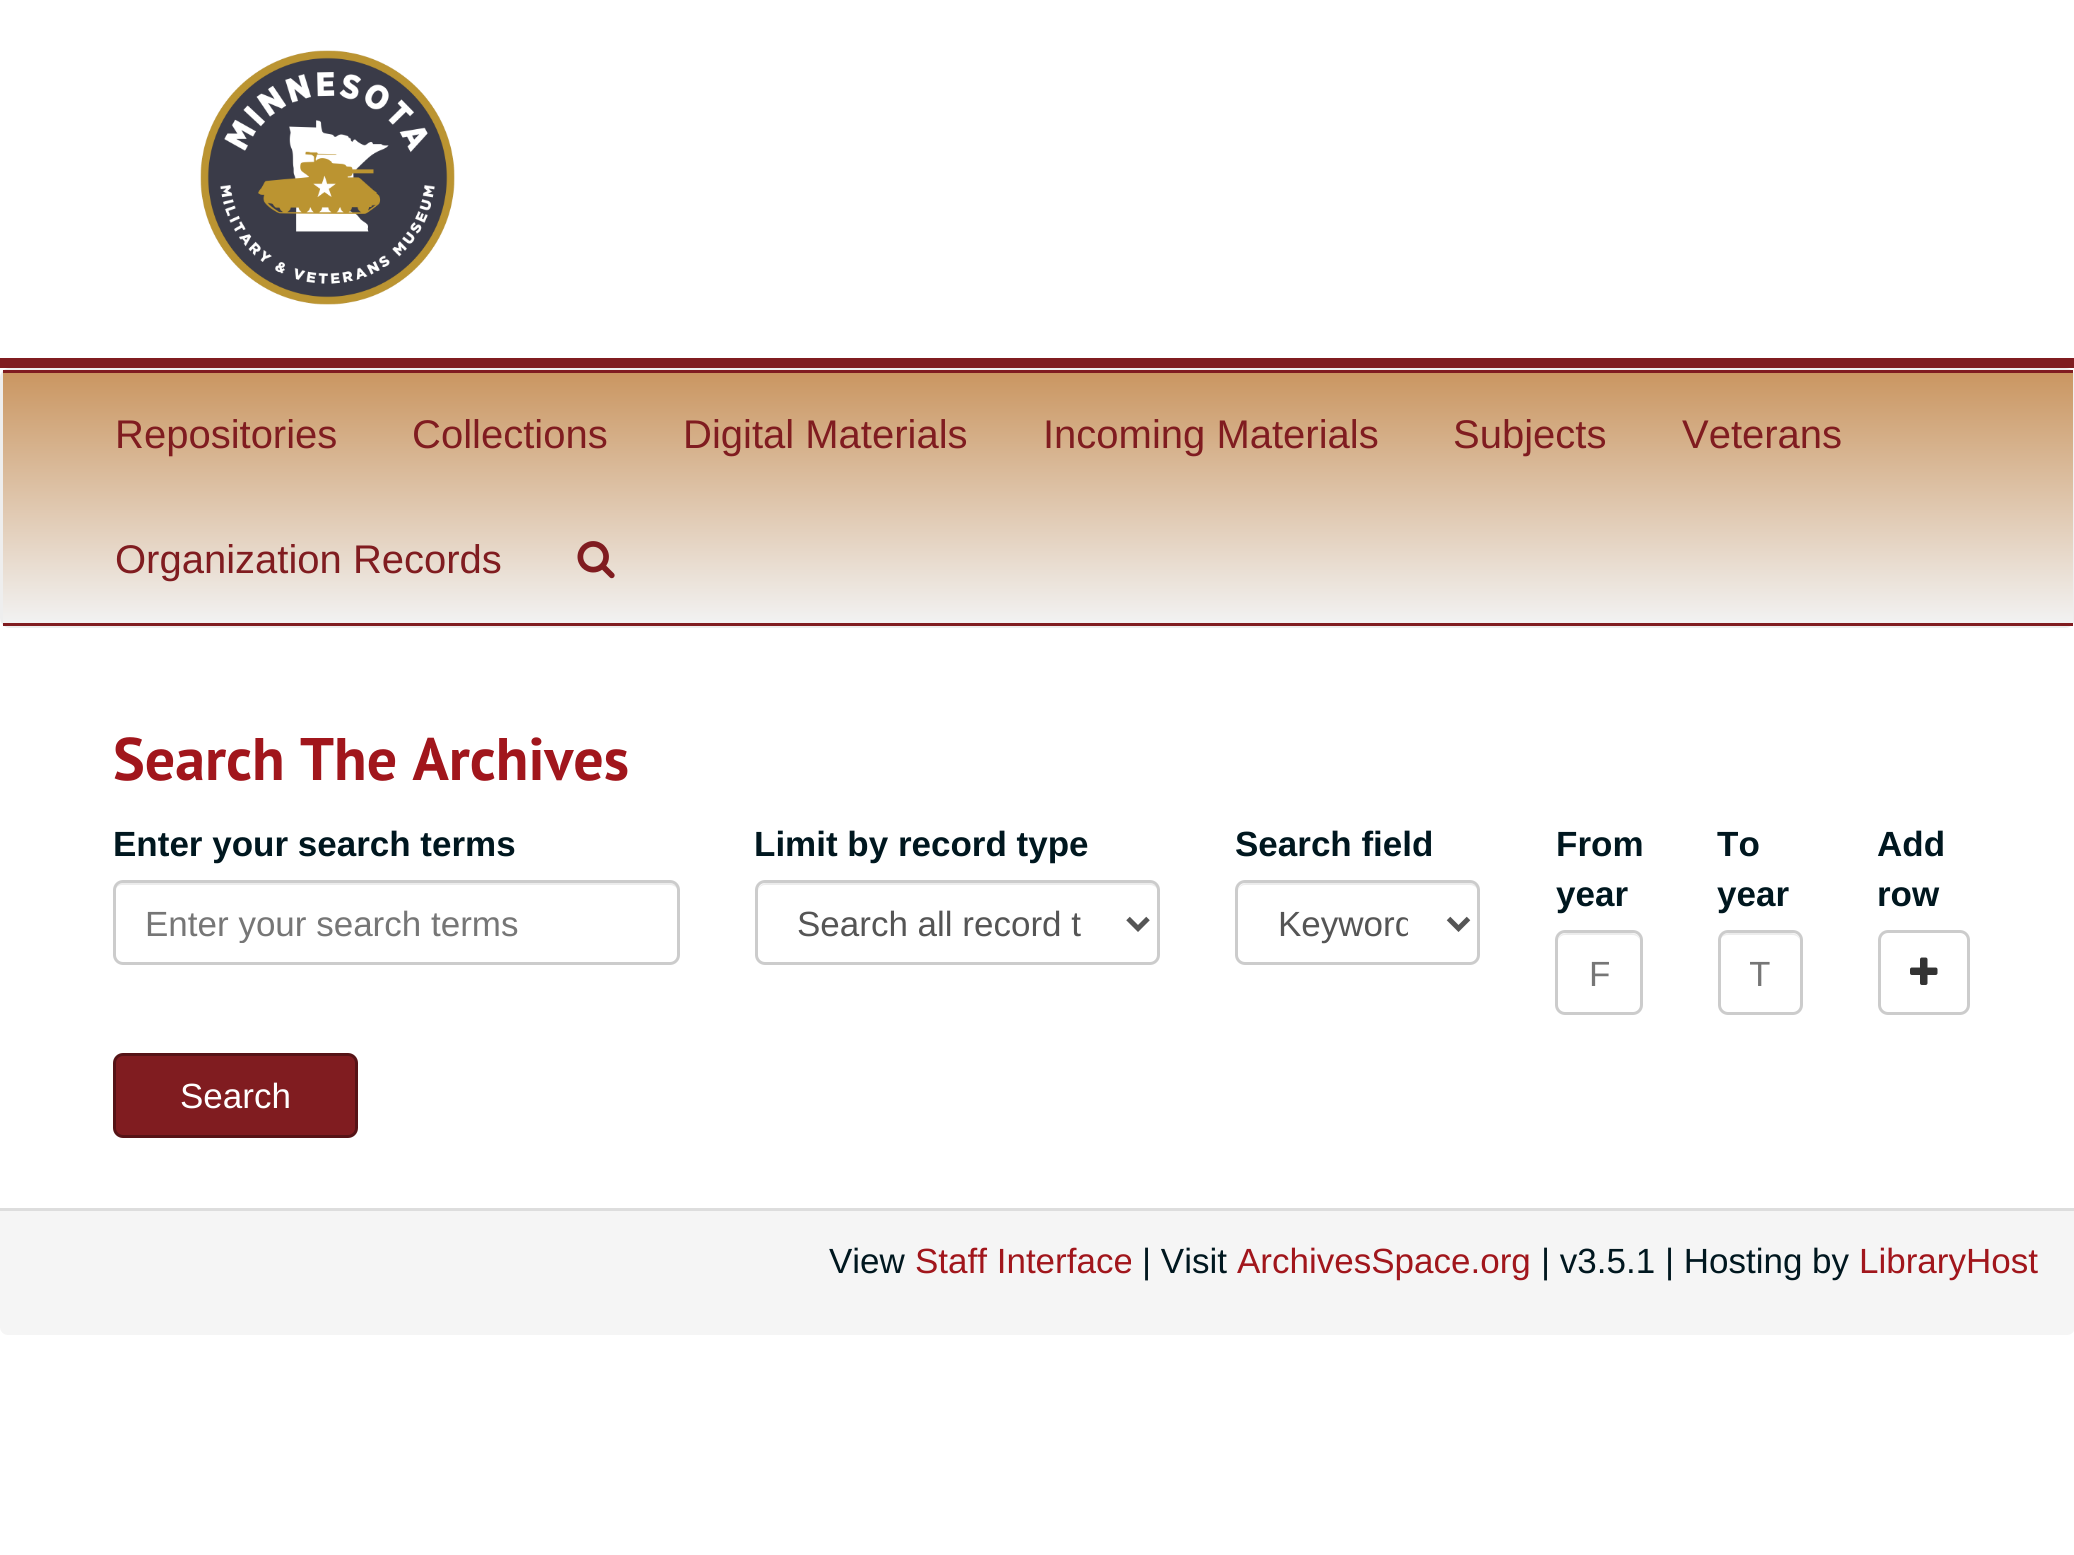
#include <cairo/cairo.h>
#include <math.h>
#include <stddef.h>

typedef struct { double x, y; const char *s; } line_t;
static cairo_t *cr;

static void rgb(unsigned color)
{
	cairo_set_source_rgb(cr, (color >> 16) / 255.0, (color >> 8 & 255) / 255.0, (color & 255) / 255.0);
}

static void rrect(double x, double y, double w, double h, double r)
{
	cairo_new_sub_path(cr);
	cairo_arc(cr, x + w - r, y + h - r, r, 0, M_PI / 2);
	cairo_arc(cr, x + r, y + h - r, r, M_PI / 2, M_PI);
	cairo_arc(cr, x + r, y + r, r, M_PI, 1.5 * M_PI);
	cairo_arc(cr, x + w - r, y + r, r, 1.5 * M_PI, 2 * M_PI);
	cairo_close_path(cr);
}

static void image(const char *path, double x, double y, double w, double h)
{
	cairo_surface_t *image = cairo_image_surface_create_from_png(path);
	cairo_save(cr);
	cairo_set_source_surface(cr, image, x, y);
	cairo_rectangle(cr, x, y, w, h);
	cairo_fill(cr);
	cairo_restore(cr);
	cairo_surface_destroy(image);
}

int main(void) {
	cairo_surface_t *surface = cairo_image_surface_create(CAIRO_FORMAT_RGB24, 2074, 1555);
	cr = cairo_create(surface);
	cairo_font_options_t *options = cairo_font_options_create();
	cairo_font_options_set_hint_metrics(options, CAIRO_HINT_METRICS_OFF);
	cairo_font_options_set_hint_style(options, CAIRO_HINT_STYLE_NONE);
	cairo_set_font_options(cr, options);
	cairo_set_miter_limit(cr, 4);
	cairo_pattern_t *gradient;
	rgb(0xffffff);
	cairo_paint(cr);
	rgb(0x801c20);
	cairo_rectangle(cr, 0, 358, 2074, 10);
	cairo_fill(cr);
	image("img/1.png", 200, 50, 255, 255);
	rrect(1.5, 369.5, 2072, 257, 8.5);
	rgb(0xeeeeee);
	cairo_set_line_width(cr, 3);
	cairo_stroke(cr);
	gradient = cairo_pattern_create_linear(1038, 372, 1038, 623);
	cairo_pattern_add_color_stop_rgba(gradient, 0, 0.792, 0.588, 0.38, 1);
	cairo_pattern_add_color_stop_rgba(gradient, 1, 0.949, 0.949, 0.949, 1);
	cairo_set_source(cr, gradient);
	cairo_pattern_destroy(gradient);
	cairo_rectangle(cr, 3, 373, 2070, 250);
	cairo_fill(cr);
	rgb(0x801c20);
	cairo_rectangle(cr, 3, 370, 2070, 3);
	cairo_fill(cr);
	cairo_rectangle(cr, 3, 623, 2070, 3);
	cairo_fill(cr);
	image("img/2.png", 577, 541, 38, 38);
	rgb(0xececec);
	cairo_new_path(cr);
	cairo_move_to(cr, 122, 885);
	cairo_line_to(cr, 670, 885);
	cairo_curve_to(cr, 674, 885, 678, 888, 678, 892);
	cairo_line_to(cr, 678, 891);
	cairo_curve_to(cr, 678, 887, 674, 883, 670, 883);
	cairo_line_to(cr, 123, 883);
	cairo_curve_to(cr, 119, 883, 115, 887, 115, 891);
	cairo_line_to(cr, 115, 892);
	cairo_curve_to(cr, 115, 888, 118, 885, 122, 885);
	cairo_close_path(cr);
	cairo_fill(cr);
	rrect(114.5, 881.5, 564, 82, 8.5);
	rgb(0xcccccc);
	cairo_stroke(cr);
	rgb(0xececec);
	cairo_new_path(cr);
	cairo_move_to(cr, 765, 885);
	cairo_line_to(cr, 1150, 885);
	cairo_curve_to(cr, 1154, 885, 1158, 888, 1158, 892);
	cairo_line_to(cr, 1158, 891);
	cairo_curve_to(cr, 1158, 887, 1154, 883, 1150, 883);
	cairo_line_to(cr, 766, 883);
	cairo_curve_to(cr, 762, 883, 758, 887, 758, 891);
	cairo_line_to(cr, 758, 892);
	cairo_curve_to(cr, 758, 888, 761, 885, 765, 885);
	cairo_close_path(cr);
	cairo_fill(cr);
	rrect(756.5, 881.5, 402, 82, 8.5);
	rgb(0xcccccc);
	cairo_stroke(cr);
	cairo_new_path(cr);
	cairo_move_to(cr, 1128, 918.5);
	cairo_line_to(cr, 1138, 928.5);
	cairo_line_to(cr, 1148, 918.5);
	rgb(0x555555);
	cairo_set_line_width(cr, 5);
	cairo_stroke(cr);
	rgb(0xececec);
	cairo_new_path(cr);
	cairo_move_to(cr, 1245, 885);
	cairo_line_to(cr, 1470, 885);
	cairo_curve_to(cr, 1474, 885, 1478, 888, 1478, 892);
	cairo_line_to(cr, 1478, 891);
	cairo_curve_to(cr, 1478, 887, 1474, 883, 1470, 883);
	cairo_line_to(cr, 1246, 883);
	cairo_curve_to(cr, 1242, 883, 1238, 887, 1238, 891);
	cairo_line_to(cr, 1238, 892);
	cairo_curve_to(cr, 1238, 888, 1241, 885, 1245, 885);
	cairo_close_path(cr);
	cairo_fill(cr);
	rrect(1236.5, 881.5, 242, 82, 8.5);
	rgb(0xcccccc);
	cairo_set_line_width(cr, 3);
	cairo_stroke(cr);
	cairo_new_path(cr);
	cairo_move_to(cr, 1448.5, 918.5);
	cairo_line_to(cr, 1458.5, 928.5);
	cairo_line_to(cr, 1468.5, 918.5);
	rgb(0x555555);
	cairo_set_line_width(cr, 5);
	cairo_stroke(cr);
	rgb(0xececec);
	cairo_new_path(cr);
	cairo_move_to(cr, 1565, 935);
	cairo_line_to(cr, 1632, 935);
	cairo_curve_to(cr, 1637, 935, 1640, 938, 1640, 942);
	cairo_curve_to(cr, 1640, 931, 1629, 933, 1621, 933);
	cairo_line_to(cr, 1577, 933);
	cairo_curve_to(cr, 1569, 933, 1558, 931, 1558, 942);
	cairo_curve_to(cr, 1558, 938, 1561, 935, 1565, 935);
	cairo_close_path(cr);
	cairo_fill(cr);
	rrect(1556.5, 931.5, 85, 82, 8.5);
	rgb(0xcccccc);
	cairo_set_line_width(cr, 3);
	cairo_stroke(cr);
	rgb(0xececec);
	cairo_new_path(cr);
	cairo_move_to(cr, 1728, 935);
	cairo_line_to(cr, 1792, 935);
	cairo_curve_to(cr, 1797, 935, 1800, 938, 1800, 942);
	cairo_curve_to(cr, 1800, 931, 1789, 933, 1781, 933);
	cairo_line_to(cr, 1739, 933);
	cairo_curve_to(cr, 1731, 933, 1720, 931, 1720, 942);
	cairo_curve_to(cr, 1720, 938, 1723, 935, 1728, 935);
	cairo_close_path(cr);
	cairo_fill(cr);
	rrect(1719.5, 931.5, 82, 82, 8.5);
	rgb(0xcccccc);
	cairo_stroke(cr);
	rrect(1879.5, 931.5, 89, 82, 8.5);
	cairo_stroke(cr);
	image("img/3.png", 1910, 957, 28, 28);
	rgb(0x801c20);
	rrect(114.5, 1054.5, 242, 82, 8.5);
	cairo_fill_preserve(cr);
	rgb(0x561316);
	cairo_stroke(cr);
	rgb(0xf5f5f5);
	cairo_new_path(cr);
	cairo_move_to(cr, 0, 1208);
	cairo_line_to(cr, 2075, 1208);
	cairo_line_to(cr, 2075, 1327);
	cairo_curve_to(cr, 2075, 1331.5, 2071.5, 1335, 2067, 1335);
	cairo_line_to(cr, 8, 1335);
	cairo_curve_to(cr, 3.5, 1335, 0, 1331.5, 0, 1327);
	cairo_close_path(cr);
	cairo_fill(cr);
	rgb(0xdddddd);
	cairo_rectangle(cr, 0, 1208, 2074, 3);
	cairo_fill(cr);
	cairo_select_font_face(cr, "Liberation Sans", CAIRO_FONT_SLANT_NORMAL, CAIRO_FONT_WEIGHT_NORMAL);
	cairo_set_font_size(cr, 40);
	rgb(0x801c20);
	{
		static const line_t items[] = {
			{115, 448, "Repositories"},
			{412, 448, "Collections"},
			{683, 448, "Digital Materials"},
			{1043, 448, "Incoming Materials"},
			{1453, 448, "Subjects"},
			{1682, 448, "Veterans"},
			{115, 573, "Organization Records"},
		};
		for (size_t i = 0; i < sizeof items / sizeof *items; i++) {
			cairo_move_to(cr, items[i].x, items[i].y);
			cairo_show_text(cr, items[i].s);
		}
	}
	cairo_select_font_face(cr, "PT Sans", CAIRO_FONT_SLANT_NORMAL, CAIRO_FONT_WEIGHT_BOLD);
	cairo_set_font_size(cr, 60);
	rgb(0xa1161c);
	cairo_move_to(cr, 113, 780);
	cairo_show_text(cr, "Search The Archives");
	cairo_select_font_face(cr, "Liberation Sans", CAIRO_FONT_SLANT_NORMAL, CAIRO_FONT_WEIGHT_BOLD);
	cairo_set_font_size(cr, 35);
	rgb(0x00171f);
	cairo_move_to(cr, 113, 856);
	cairo_show_text(cr, "Enter your search terms");
	cairo_save(cr);
	cairo_rectangle(cr, 145, 903, 503, 40);
	cairo_clip(cr);
	cairo_select_font_face(cr, "Liberation Sans", CAIRO_FONT_SLANT_NORMAL, CAIRO_FONT_WEIGHT_NORMAL);
	rgb(0x767676);
	cairo_move_to(cr, 145, 936);
	cairo_show_text(cr, "Enter your search terms");
	cairo_restore(cr);
	cairo_move_to(cr, 754, 856);
	cairo_show_text(cr, "Limit by record type");
	cairo_select_font_face(cr, "Liberation Sans", CAIRO_FONT_SLANT_NORMAL, CAIRO_FONT_WEIGHT_NORMAL);
	rgb(0x555555);
	cairo_move_to(cr, 797, 936);
	cairo_show_text(cr, "Search all record t");
	cairo_select_font_face(cr, "Liberation Sans", CAIRO_FONT_SLANT_NORMAL, CAIRO_FONT_WEIGHT_BOLD);
	rgb(0x00171f);
	cairo_move_to(cr, 1235, 856);
	cairo_show_text(cr, "Search field");
	cairo_save(cr);
	cairo_rectangle(cr, 1278, 900, 130, 45);
	cairo_clip(cr);
	cairo_select_font_face(cr, "Liberation Sans", CAIRO_FONT_SLANT_NORMAL, CAIRO_FONT_WEIGHT_NORMAL);
	rgb(0x555555);
	cairo_move_to(cr, 1278, 936);
	cairo_show_text(cr, "Keyword");
	cairo_restore(cr);
	cairo_move_to(cr, 1556, 856);
	cairo_show_text(cr, "From");
	cairo_move_to(cr, 1556, 906);
	cairo_show_text(cr, "year");
	cairo_select_font_face(cr, "Liberation Sans", CAIRO_FONT_SLANT_NORMAL, CAIRO_FONT_WEIGHT_NORMAL);
	rgb(0x767676);
	cairo_move_to(cr, 1589, 986);
	cairo_show_text(cr, "F");
	cairo_select_font_face(cr, "Liberation Sans", CAIRO_FONT_SLANT_NORMAL, CAIRO_FONT_WEIGHT_BOLD);
	rgb(0x00171f);
	cairo_move_to(cr, 1717, 856);
	cairo_show_text(cr, "To");
	cairo_move_to(cr, 1717, 906);
	cairo_show_text(cr, "year");
	cairo_save(cr);
	cairo_rectangle(cr, 1750, 953, 20, 40);
	cairo_clip(cr);
	cairo_select_font_face(cr, "Liberation Sans", CAIRO_FONT_SLANT_NORMAL, CAIRO_FONT_WEIGHT_NORMAL);
	rgb(0x767676);
	cairo_move_to(cr, 1749, 986);
	cairo_show_text(cr, "T");
	cairo_restore(cr);
	cairo_move_to(cr, 1877, 856);
	cairo_show_text(cr, "Add");
	cairo_move_to(cr, 1877, 906);
	cairo_show_text(cr, "row");
	cairo_select_font_face(cr, "Liberation Sans", CAIRO_FONT_SLANT_NORMAL, CAIRO_FONT_WEIGHT_NORMAL);
	rgb(0xffffff);
	cairo_move_to(cr, 180, 1108);
	cairo_show_text(cr, "Search");
	rgb(0x00171f);
	cairo_move_to(cr, 829, 1273);
	cairo_show_text(cr, "View");
	rgb(0xa1161c);
	cairo_move_to(cr, 915, 1273);
	cairo_show_text(cr, "Staff Interface");
	rgb(0x00171f);
	cairo_move_to(cr, 1142, 1273);
	cairo_show_text(cr, "| Visit");
	rgb(0xa1161c);
	cairo_move_to(cr, 1237, 1273);
	cairo_show_text(cr, "ArchivesSpace.org");
	rgb(0x00171f);
	cairo_move_to(cr, 1541, 1273);
	cairo_show_text(cr, "| v3.5.1 | Hosting by");
	rgb(0xa1161c);
	cairo_move_to(cr, 1859, 1273);
	cairo_show_text(cr, "LibraryHost");
	cairo_surface_write_to_png(surface, "page.png");
	cairo_font_options_destroy(options);
	cairo_destroy(cr);
	cairo_surface_destroy(surface);
	return 0;
}
